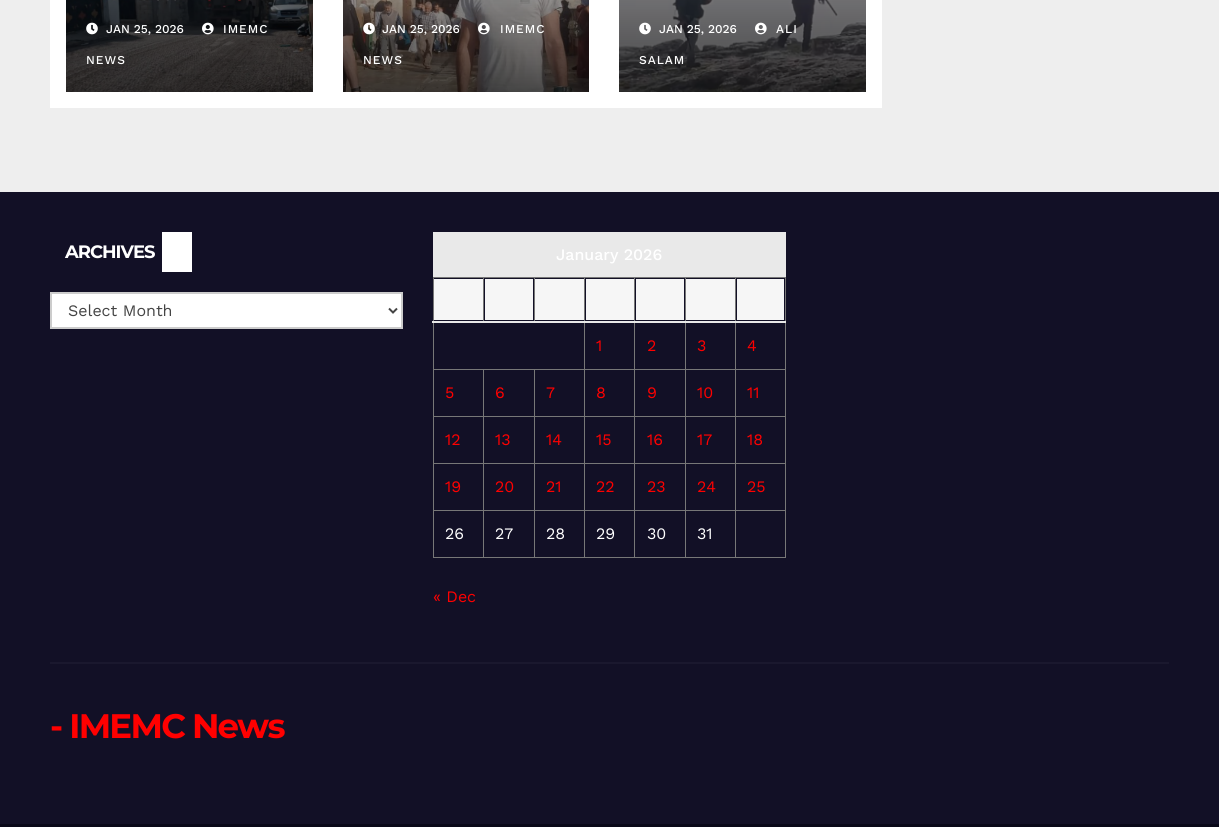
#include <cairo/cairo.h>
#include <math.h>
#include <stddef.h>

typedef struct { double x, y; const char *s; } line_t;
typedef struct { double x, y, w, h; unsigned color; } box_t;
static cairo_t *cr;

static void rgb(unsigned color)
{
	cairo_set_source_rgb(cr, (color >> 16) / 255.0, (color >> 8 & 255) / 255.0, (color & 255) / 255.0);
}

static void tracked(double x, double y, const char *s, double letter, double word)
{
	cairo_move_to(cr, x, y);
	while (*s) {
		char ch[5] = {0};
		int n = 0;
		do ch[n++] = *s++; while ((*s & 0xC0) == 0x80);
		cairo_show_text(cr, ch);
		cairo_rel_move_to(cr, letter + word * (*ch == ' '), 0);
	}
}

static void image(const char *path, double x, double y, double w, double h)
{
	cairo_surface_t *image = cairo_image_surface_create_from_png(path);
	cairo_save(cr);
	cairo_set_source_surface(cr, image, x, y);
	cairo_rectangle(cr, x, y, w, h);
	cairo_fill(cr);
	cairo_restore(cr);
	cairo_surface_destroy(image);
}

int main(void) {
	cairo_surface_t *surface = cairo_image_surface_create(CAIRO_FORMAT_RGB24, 1219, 827);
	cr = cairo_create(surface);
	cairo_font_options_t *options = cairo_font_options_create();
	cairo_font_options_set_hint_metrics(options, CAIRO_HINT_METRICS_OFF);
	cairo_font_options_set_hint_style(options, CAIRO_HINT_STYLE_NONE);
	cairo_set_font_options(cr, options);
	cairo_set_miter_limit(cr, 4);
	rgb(0xeeeeee);
	cairo_paint(cr);
	rgb(0xffffff);
	cairo_rectangle(cr, 50, 0, 832, 108);
	cairo_fill(cr);
	image("img/1.png", 66, 0, 247, 92);
	image("img/2.png", 202, 22, 12, 13);
	image("img/3.png", 86, 22, 12, 13);
	image("img/4.png", 343, 0, 246, 92);
	image("img/5.png", 478, 22, 12, 13);
	image("img/6.png", 363, 22, 12, 13);
	image("img/7.png", 619, 0, 247, 92);
	image("img/8.png", 639, 22, 12, 13);
	image("img/9.png", 755, 22, 12, 13);
	rgb(0x121026);
	cairo_rectangle(cr, 0, 192, 1219, 632);
	cairo_fill(cr);
	rgb(0xffffff);
	cairo_rectangle(cr, 162, 232, 30, 40);
	cairo_fill(cr);
	cairo_rectangle(cr, 51, 293, 351, 35);
	cairo_fill_preserve(cr);
	rgb(0xcccccc);
	cairo_stroke(cr);
	cairo_new_path(cr);
	cairo_move_to(cr, 389, 308.5);
	cairo_line_to(cr, 393, 312.5);
	cairo_line_to(cr, 397, 308.5);
	rgb(0x444444);
	cairo_stroke(cr);
	{
		static const box_t items[] = {
			{433, 232, 353, 45, 0xe9e9e9},
			{737, 279, 47, 41, 0xf6f6f6},
			{735, 277, 51, 1, 0x777777},
			{735, 369, 51, 1, 0x777777},
			{735, 416, 51, 1, 0x777777},
			{735, 463, 51, 1, 0x777777},
			{735, 510, 51, 1, 0x777777},
			{785, 510, 1, 48, 0x777777},
			{785, 463, 1, 48, 0x777777},
			{785, 416, 1, 48, 0x777777},
			{785, 321, 1, 96, 0x777777},
			{785, 277, 1, 45, 0x777777},
			{735, 557, 51, 1, 0x777777},
			{735, 510, 1, 48, 0x777777},
			{685, 510, 51, 1, 0x777777},
			{735, 463, 1, 48, 0x777777},
			{685, 463, 51, 1, 0x777777},
			{735, 416, 1, 48, 0x777777},
			{685, 416, 51, 1, 0x777777},
			{735, 369, 1, 48, 0x777777},
			{685, 369, 51, 1, 0x777777},
			{735, 321, 1, 49, 0x777777},
			{735, 277, 1, 45, 0x777777},
			{685, 277, 51, 1, 0x777777},
			{685, 557, 51, 1, 0x777777},
			{685, 510, 1, 48, 0x777777},
			{634, 510, 52, 1, 0x777777},
			{685, 463, 1, 48, 0x777777},
			{634, 463, 52, 1, 0x777777},
			{685, 416, 1, 48, 0x777777},
			{634, 416, 52, 1, 0x777777},
			{685, 369, 1, 48, 0x777777},
			{634, 369, 52, 1, 0x777777},
			{685, 321, 1, 49, 0x777777},
			{685, 277, 1, 45, 0x777777},
			{634, 277, 52, 1, 0x777777},
			{634, 557, 52, 1, 0x777777},
			{634, 510, 1, 48, 0x777777},
			{584, 510, 51, 1, 0x777777},
			{634, 463, 1, 48, 0x777777},
			{584, 463, 51, 1, 0x777777},
			{634, 416, 1, 48, 0x777777},
			{584, 416, 51, 1, 0x777777},
			{634, 369, 1, 48, 0x777777},
			{584, 369, 51, 1, 0x777777},
			{634, 321, 1, 49, 0x777777},
			{634, 277, 1, 45, 0x777777},
			{584, 277, 51, 1, 0x777777},
			{584, 557, 51, 1, 0x777777},
			{584, 510, 1, 48, 0x777777},
			{534, 510, 51, 1, 0x777777},
			{584, 463, 1, 48, 0x777777},
			{534, 463, 51, 1, 0x777777},
			{584, 416, 1, 48, 0x777777},
			{534, 416, 51, 1, 0x777777},
			{584, 369, 1, 48, 0x777777},
			{534, 369, 51, 1, 0x777777},
			{584, 321, 1, 49, 0x777777},
			{584, 277, 1, 45, 0x777777},
			{534, 277, 51, 1, 0x777777},
			{534, 277, 1, 45, 0x777777},
			{483, 277, 52, 1, 0x777777},
			{483, 277, 1, 45, 0x777777},
			{433, 277, 51, 1, 0x777777},
			{534, 557, 51, 1, 0x777777},
			{534, 510, 1, 48, 0x777777},
			{483, 510, 52, 1, 0x777777},
			{534, 463, 1, 48, 0x777777},
			{483, 463, 52, 1, 0x777777},
			{534, 416, 1, 48, 0x777777},
			{483, 416, 52, 1, 0x777777},
			{534, 369, 1, 48, 0x777777},
			{483, 369, 52, 1, 0x777777},
			{483, 557, 52, 1, 0x777777},
			{483, 510, 1, 48, 0x777777},
			{433, 510, 51, 1, 0x777777},
			{483, 463, 1, 48, 0x777777},
			{433, 463, 51, 1, 0x777777},
			{483, 416, 1, 48, 0x777777},
			{433, 416, 51, 1, 0x777777},
			{483, 369, 1, 48, 0x777777},
			{433, 369, 51, 1, 0x777777},
			{433, 557, 51, 1, 0x777777},
			{433, 510, 1, 48, 0x777777},
			{433, 463, 1, 48, 0x777777},
			{433, 416, 1, 48, 0x777777},
			{433, 321, 1, 96, 0x777777},
			{433, 277, 1, 45, 0x777777},
			{432, 321, 354, 2, 0xe9e9e9},
			{434, 279, 49, 41, 0xf6f6f6},
			{485, 279, 48, 41, 0xf6f6f6},
			{535, 279, 49, 41, 0xf6f6f6},
			{586, 279, 48, 41, 0xf6f6f6},
			{636, 279, 48, 41, 0xf6f6f6},
			{686, 279, 49, 41, 0xf6f6f6},
			{50, 662, 1119, 2, 0x1a182e},
			{0, 824, 1219, 3, 0x090818},
		};
		for (size_t i = 0; i < sizeof items / sizeof *items; i++) {
			rgb(items[i].color);
			cairo_rectangle(cr, items[i].x, items[i].y, items[i].w, items[i].h);
			cairo_fill(cr);
		}
	}
	cairo_select_font_face(cr, "Work Sans Medium", CAIRO_FONT_SLANT_NORMAL, CAIRO_FONT_WEIGHT_NORMAL);
	cairo_set_font_size(cr, 12);
	rgb(0xffffff);
	tracked(223, 33, "IMEMC", 1, 0);
	tracked(86, 64, "NEWS", 1, 0);
	cairo_move_to(cr, 106, 33);
	cairo_show_text(cr, "JAN 25, 2026");
	tracked(500, 33, "IMEMC", 1, 0);
	tracked(363, 64, "NEWS", 1, 0);
	cairo_move_to(cr, 382, 33);
	cairo_show_text(cr, "JAN 25, 2026");
	cairo_move_to(cr, 659, 33);
	cairo_show_text(cr, "JAN 25, 2026");
	tracked(776, 33, "ALI", 1, 0);
	tracked(639, 64, "SALAM", 1, 0);
	cairo_select_font_face(cr, "Montserrat Thin", CAIRO_FONT_SLANT_NORMAL, CAIRO_FONT_WEIGHT_NORMAL);
	cairo_set_font_size(cr, 18);
	tracked(65, 258, "ARCHIVES", -1, 0);
	cairo_select_font_face(cr, "Work Sans", CAIRO_FONT_SLANT_NORMAL, CAIRO_FONT_WEIGHT_NORMAL);
	cairo_set_font_size(cr, 16);
	rgb(0x444444);
	cairo_move_to(cr, 68, 316);
	cairo_show_text(cr, "Select Month");
	cairo_select_font_face(cr, "Work Sans Medium", CAIRO_FONT_SLANT_NORMAL, CAIRO_FONT_WEIGHT_NORMAL);
	rgb(0xffffff);
	cairo_move_to(cr, 556, 260);
	cairo_show_text(cr, "January 2026");
	cairo_select_font_face(cr, "Work Sans", CAIRO_FONT_SLANT_NORMAL, CAIRO_FONT_WEIGHT_NORMAL);
	rgb(0xff0000);
	{
		static const line_t items[] = {
			{596, 351, "1"},
			{647, 351, "2"},
			{697, 351, "3"},
			{747, 351, "4"},
			{445, 398, "5"},
			{495, 398, "6"},
			{546, 398, "7"},
			{596, 398, "8"},
			{647, 398, "9"},
			{697, 398, "10"},
			{747, 398, "11"},
			{445, 445, "12"},
			{495, 445, "13"},
			{546, 445, "14"},
			{596, 445, "15"},
			{647, 445, "16"},
			{697, 445, "17"},
			{747, 445, "18"},
			{445, 492, "19"},
			{495, 492, "20"},
			{546, 492, "21"},
			{596, 492, "22"},
			{647, 492, "23"},
			{697, 492, "24"},
			{747, 492, "25"},
		};
		for (size_t i = 0; i < sizeof items / sizeof *items; i++) {
			cairo_move_to(cr, items[i].x, items[i].y);
			cairo_show_text(cr, items[i].s);
		}
	}
	rgb(0xffffff);
	{
		static const line_t items[] = {
			{445, 539, "26"},
			{495, 539, "27"},
			{546, 539, "28"},
			{596, 539, "29"},
			{647, 539, "30"},
			{697, 539, "31"},
		};
		for (size_t i = 0; i < sizeof items / sizeof *items; i++) {
			cairo_move_to(cr, items[i].x, items[i].y);
			cairo_show_text(cr, items[i].s);
		}
	}
	rgb(0xff0000);
	cairo_move_to(cr, 433, 602);
	cairo_show_text(cr, "« Dec");
	cairo_select_font_face(cr, "Montserrat Thin", CAIRO_FONT_SLANT_NORMAL, CAIRO_FONT_WEIGHT_NORMAL);
	cairo_set_font_size(cr, 34);
	tracked(50, 738, "- IMEMC News", -1.75, 0);
	cairo_surface_write_to_png(surface, "page.png");
	cairo_font_options_destroy(options);
	cairo_destroy(cr);
	cairo_surface_destroy(surface);
	return 0;
}
